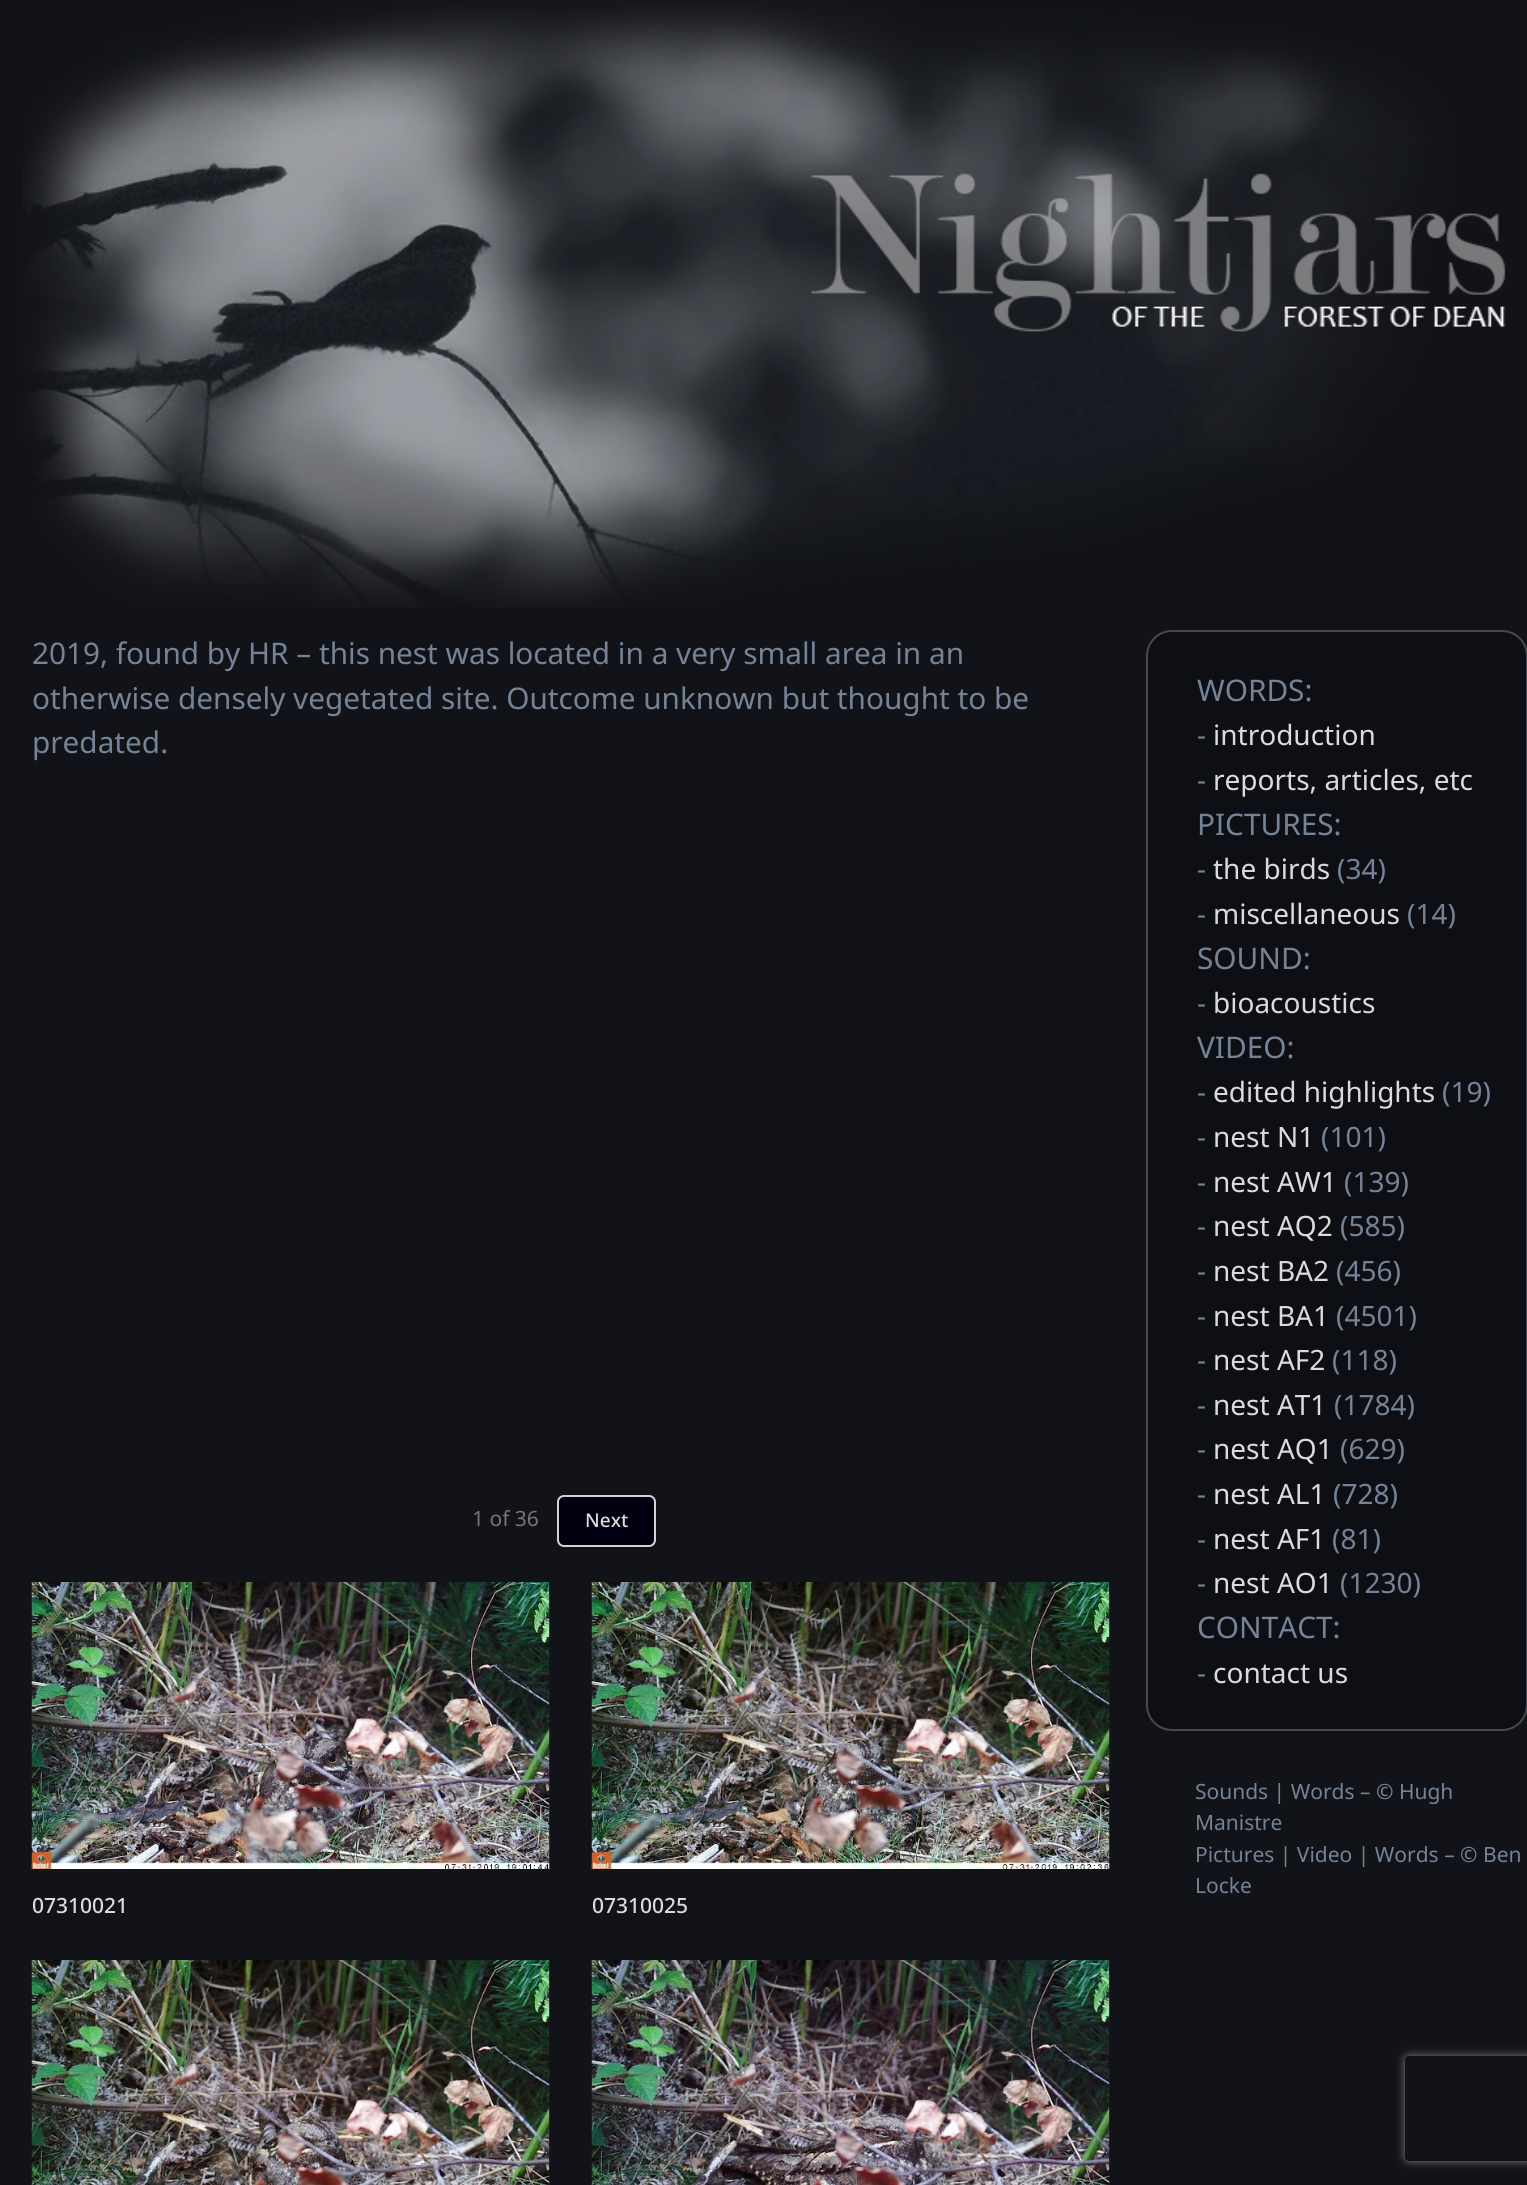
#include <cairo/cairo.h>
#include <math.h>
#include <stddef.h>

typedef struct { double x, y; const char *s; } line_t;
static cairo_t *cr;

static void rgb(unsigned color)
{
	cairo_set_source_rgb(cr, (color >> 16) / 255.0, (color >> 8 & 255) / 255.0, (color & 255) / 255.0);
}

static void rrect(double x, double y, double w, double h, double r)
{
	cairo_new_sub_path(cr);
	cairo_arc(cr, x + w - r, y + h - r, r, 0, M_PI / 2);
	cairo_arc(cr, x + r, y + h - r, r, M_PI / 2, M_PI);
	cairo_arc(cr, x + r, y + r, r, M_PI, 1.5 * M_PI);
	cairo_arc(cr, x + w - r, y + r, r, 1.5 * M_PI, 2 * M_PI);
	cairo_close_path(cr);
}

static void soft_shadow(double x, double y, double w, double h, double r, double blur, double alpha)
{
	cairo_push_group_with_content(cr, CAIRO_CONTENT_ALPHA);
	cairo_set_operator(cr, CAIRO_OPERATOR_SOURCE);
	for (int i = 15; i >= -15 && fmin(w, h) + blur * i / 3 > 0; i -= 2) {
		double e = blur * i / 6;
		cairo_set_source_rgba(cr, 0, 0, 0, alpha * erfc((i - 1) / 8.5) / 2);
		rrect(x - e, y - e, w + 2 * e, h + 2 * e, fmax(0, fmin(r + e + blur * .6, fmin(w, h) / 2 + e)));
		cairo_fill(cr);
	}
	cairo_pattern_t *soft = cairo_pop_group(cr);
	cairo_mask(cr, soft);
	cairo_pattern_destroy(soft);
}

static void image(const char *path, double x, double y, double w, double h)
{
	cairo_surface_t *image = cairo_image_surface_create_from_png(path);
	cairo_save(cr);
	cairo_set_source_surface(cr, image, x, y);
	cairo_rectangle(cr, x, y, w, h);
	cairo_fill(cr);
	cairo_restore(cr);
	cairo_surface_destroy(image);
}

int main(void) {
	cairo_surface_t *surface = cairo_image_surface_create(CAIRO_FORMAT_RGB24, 1527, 2185);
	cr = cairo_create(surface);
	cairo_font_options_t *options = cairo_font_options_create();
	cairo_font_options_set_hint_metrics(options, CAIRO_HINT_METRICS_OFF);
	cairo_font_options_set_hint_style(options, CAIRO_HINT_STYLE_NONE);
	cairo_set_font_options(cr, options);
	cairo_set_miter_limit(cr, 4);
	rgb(0x111318);
	cairo_paint(cr);
	image("img/1.png", 22, 0, 1484, 608);
	rgb(0x000010);
	rrect(558, 1496, 97, 50, 6);
	cairo_fill_preserve(cr);
	rgb(0xd3d3d3);
	cairo_stroke(cr);
	image("img/2.png", 31, 1582, 519, 287);
	image("img/3.png", 591, 1582, 519, 287);
	image("img/4.png", 31, 1960, 519, 225);
	image("img/5.png", 591, 1960, 519, 225);
	rgb(0x0e0f15);
	rrect(1147, 631, 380, 1099, 25);
	cairo_fill_preserve(cr);
	rgb(0x46494f);
	cairo_stroke(cr);
	cairo_save(cr);
	cairo_set_fill_rule(cr, CAIRO_FILL_RULE_EVEN_ODD);
	cairo_new_path(cr);
	cairo_move_to(cr, 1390, 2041);
	cairo_line_to(cr, 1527, 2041);
	cairo_line_to(cr, 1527, 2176);
	cairo_line_to(cr, 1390, 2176);
	cairo_close_path(cr);
	cairo_move_to(cr, 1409, 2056);
	cairo_line_to(cr, 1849, 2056);
	cairo_curve_to(cr, 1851, 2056, 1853, 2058, 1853, 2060);
	cairo_line_to(cr, 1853, 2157);
	cairo_curve_to(cr, 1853, 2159, 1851, 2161, 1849, 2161);
	cairo_line_to(cr, 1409, 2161);
	cairo_curve_to(cr, 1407, 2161, 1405, 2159, 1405, 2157);
	cairo_line_to(cr, 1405, 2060);
	cairo_curve_to(cr, 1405, 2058, 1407, 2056, 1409, 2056);
	cairo_close_path(cr);
	cairo_clip(cr);
	rgb(0x808080);
	soft_shadow(1405, 2056, 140, 105, 4, 4.5, 1);
	cairo_restore(cr);
	cairo_select_font_face(cr, "Noto Sans", CAIRO_FONT_SLANT_NORMAL, CAIRO_FONT_WEIGHT_NORMAL);
	cairo_set_font_size(cr, 29.75);
	rgb(0x758396);
	{
		static const line_t items[] = {
			{32, 664, "2019, found by HR – this nest was located in a very small area in an"},
			{32, 709, "otherwise densely vegetated site. Outcome unknown but thought to be"},
			{32, 753, "predated."},
		};
		for (size_t i = 0; i < sizeof items / sizeof *items; i++) {
			cairo_move_to(cr, items[i].x, items[i].y);
			cairo_show_text(cr, items[i].s);
		}
	}
	cairo_set_font_size(cr, 21);
	rgb(0x767676);
	cairo_move_to(cr, 472, 1526);
	cairo_show_text(cr, "1 of 36");
	cairo_select_font_face(cr, "Noto Sans Medium", CAIRO_FONT_SLANT_NORMAL, CAIRO_FONT_WEIGHT_NORMAL);
	cairo_set_font_size(cr, 19);
	rgb(0xdbdbdb);
	cairo_move_to(cr, 585, 1527);
	cairo_show_text(cr, "Next");
	cairo_set_font_size(cr, 21);
	cairo_move_to(cr, 32, 1913);
	cairo_show_text(cr, "07310021");
	cairo_move_to(cr, 592, 1913);
	cairo_show_text(cr, "07310025");
	cairo_select_font_face(cr, "Noto Sans", CAIRO_FONT_SLANT_NORMAL, CAIRO_FONT_WEIGHT_NORMAL);
	cairo_set_font_size(cr, 29.75);
	rgb(0x758396);
	cairo_move_to(cr, 1197, 701);
	cairo_show_text(cr, "WORDS:");
	cairo_set_font_size(cr, 28);
	cairo_move_to(cr, 1197, 745);
	cairo_show_text(cr, "-");
	rgb(0xdbdbdb);
	cairo_move_to(cr, 1213, 745);
	cairo_show_text(cr, "introduction");
	rgb(0x758396);
	cairo_move_to(cr, 1197, 790);
	cairo_show_text(cr, "-");
	rgb(0xdbdbdb);
	cairo_move_to(cr, 1213, 790);
	cairo_show_text(cr, "reports, articles, etc");
	cairo_set_font_size(cr, 29.75);
	rgb(0x758396);
	cairo_move_to(cr, 1197, 835);
	cairo_show_text(cr, "PICTURES:");
	cairo_set_font_size(cr, 28);
	cairo_move_to(cr, 1197, 879);
	cairo_show_text(cr, "-");
	rgb(0xdbdbdb);
	cairo_move_to(cr, 1213, 879);
	cairo_show_text(cr, "the birds");
	rgb(0x758396);
	cairo_move_to(cr, 1337, 879);
	cairo_show_text(cr, "(34)");
	cairo_move_to(cr, 1197, 924);
	cairo_show_text(cr, "-");
	rgb(0xdbdbdb);
	cairo_move_to(cr, 1213, 924);
	cairo_show_text(cr, "miscellaneous");
	rgb(0x758396);
	cairo_move_to(cr, 1407, 924);
	cairo_show_text(cr, "(14)");
	cairo_set_font_size(cr, 29.75);
	cairo_move_to(cr, 1197, 969);
	cairo_show_text(cr, "SOUND:");
	cairo_set_font_size(cr, 28);
	cairo_move_to(cr, 1197, 1013);
	cairo_show_text(cr, "-");
	rgb(0xdbdbdb);
	cairo_move_to(cr, 1213, 1013);
	cairo_show_text(cr, "bioacoustics");
	cairo_set_font_size(cr, 29.75);
	rgb(0x758396);
	cairo_move_to(cr, 1197, 1058);
	cairo_show_text(cr, "VIDEO:");
	cairo_set_font_size(cr, 28);
	cairo_move_to(cr, 1197, 1102);
	cairo_show_text(cr, "-");
	rgb(0xdbdbdb);
	cairo_move_to(cr, 1213, 1102);
	cairo_show_text(cr, "edited highlights");
	rgb(0x758396);
	cairo_move_to(cr, 1442, 1102);
	cairo_show_text(cr, "(19)");
	cairo_move_to(cr, 1197, 1147);
	cairo_show_text(cr, "-");
	rgb(0xdbdbdb);
	cairo_move_to(cr, 1213, 1147);
	cairo_show_text(cr, "nest N1");
	rgb(0x758396);
	cairo_move_to(cr, 1321, 1147);
	cairo_show_text(cr, "(101)");
	cairo_move_to(cr, 1197, 1192);
	cairo_show_text(cr, "-");
	rgb(0xdbdbdb);
	cairo_move_to(cr, 1213, 1192);
	cairo_show_text(cr, "nest AW1");
	rgb(0x758396);
	cairo_move_to(cr, 1344, 1192);
	cairo_show_text(cr, "(139)");
	cairo_move_to(cr, 1197, 1236);
	cairo_show_text(cr, "-");
	rgb(0xdbdbdb);
	cairo_move_to(cr, 1213, 1236);
	cairo_show_text(cr, "nest AQ2");
	rgb(0x758396);
	cairo_move_to(cr, 1340, 1236);
	cairo_show_text(cr, "(585)");
	cairo_move_to(cr, 1197, 1281);
	cairo_show_text(cr, "-");
	rgb(0xdbdbdb);
	cairo_move_to(cr, 1213, 1281);
	cairo_show_text(cr, "nest BA2");
	rgb(0x758396);
	cairo_move_to(cr, 1336, 1281);
	cairo_show_text(cr, "(456)");
	cairo_move_to(cr, 1197, 1326);
	cairo_show_text(cr, "-");
	rgb(0xdbdbdb);
	cairo_move_to(cr, 1213, 1326);
	cairo_show_text(cr, "nest BA1");
	rgb(0x758396);
	cairo_move_to(cr, 1336, 1326);
	cairo_show_text(cr, "(4501)");
	cairo_move_to(cr, 1197, 1370);
	cairo_show_text(cr, "-");
	rgb(0xdbdbdb);
	cairo_move_to(cr, 1213, 1370);
	cairo_show_text(cr, "nest AF2");
	rgb(0x758396);
	cairo_move_to(cr, 1332, 1370);
	cairo_show_text(cr, "(118)");
	cairo_move_to(cr, 1197, 1415);
	cairo_show_text(cr, "-");
	rgb(0xdbdbdb);
	cairo_move_to(cr, 1213, 1415);
	cairo_show_text(cr, "nest AT1");
	rgb(0x758396);
	cairo_move_to(cr, 1334, 1415);
	cairo_show_text(cr, "(1784)");
	cairo_move_to(cr, 1197, 1459);
	cairo_show_text(cr, "-");
	rgb(0xdbdbdb);
	cairo_move_to(cr, 1213, 1459);
	cairo_show_text(cr, "nest AQ1");
	rgb(0x758396);
	cairo_move_to(cr, 1340, 1459);
	cairo_show_text(cr, "(629)");
	cairo_move_to(cr, 1197, 1504);
	cairo_show_text(cr, "-");
	rgb(0xdbdbdb);
	cairo_move_to(cr, 1213, 1504);
	cairo_show_text(cr, "nest AL1");
	rgb(0x758396);
	cairo_move_to(cr, 1333, 1504);
	cairo_show_text(cr, "(728)");
	cairo_move_to(cr, 1197, 1549);
	cairo_show_text(cr, "-");
	rgb(0xdbdbdb);
	cairo_move_to(cr, 1213, 1549);
	cairo_show_text(cr, "nest AF1");
	rgb(0x758396);
	cairo_move_to(cr, 1332, 1549);
	cairo_show_text(cr, "(81)");
	cairo_move_to(cr, 1197, 1593);
	cairo_show_text(cr, "-");
	rgb(0xdbdbdb);
	cairo_move_to(cr, 1213, 1593);
	cairo_show_text(cr, "nest AO1");
	rgb(0x758396);
	cairo_move_to(cr, 1340, 1593);
	cairo_show_text(cr, "(1230)");
	cairo_set_font_size(cr, 29.75);
	cairo_move_to(cr, 1197, 1638);
	cairo_show_text(cr, "CONTACT:");
	cairo_set_font_size(cr, 28);
	cairo_move_to(cr, 1197, 1683);
	cairo_show_text(cr, "-");
	rgb(0xdbdbdb);
	cairo_move_to(cr, 1213, 1683);
	cairo_show_text(cr, "contact us");
	cairo_set_font_size(cr, 21);
	rgb(0x758396);
	{
		static const line_t items[] = {
			{1195, 1799, "Sounds | Words – © Hugh"},
			{1195, 1830, "Manistre"},
			{1195, 1862, "Pictures | Video | Words – © Ben"},
			{1195, 1893, "Locke"},
		};
		for (size_t i = 0; i < sizeof items / sizeof *items; i++) {
			cairo_move_to(cr, items[i].x, items[i].y);
			cairo_show_text(cr, items[i].s);
		}
	}
	cairo_surface_write_to_png(surface, "page.png");
	cairo_font_options_destroy(options);
	cairo_destroy(cr);
	cairo_surface_destroy(surface);
	return 0;
}
